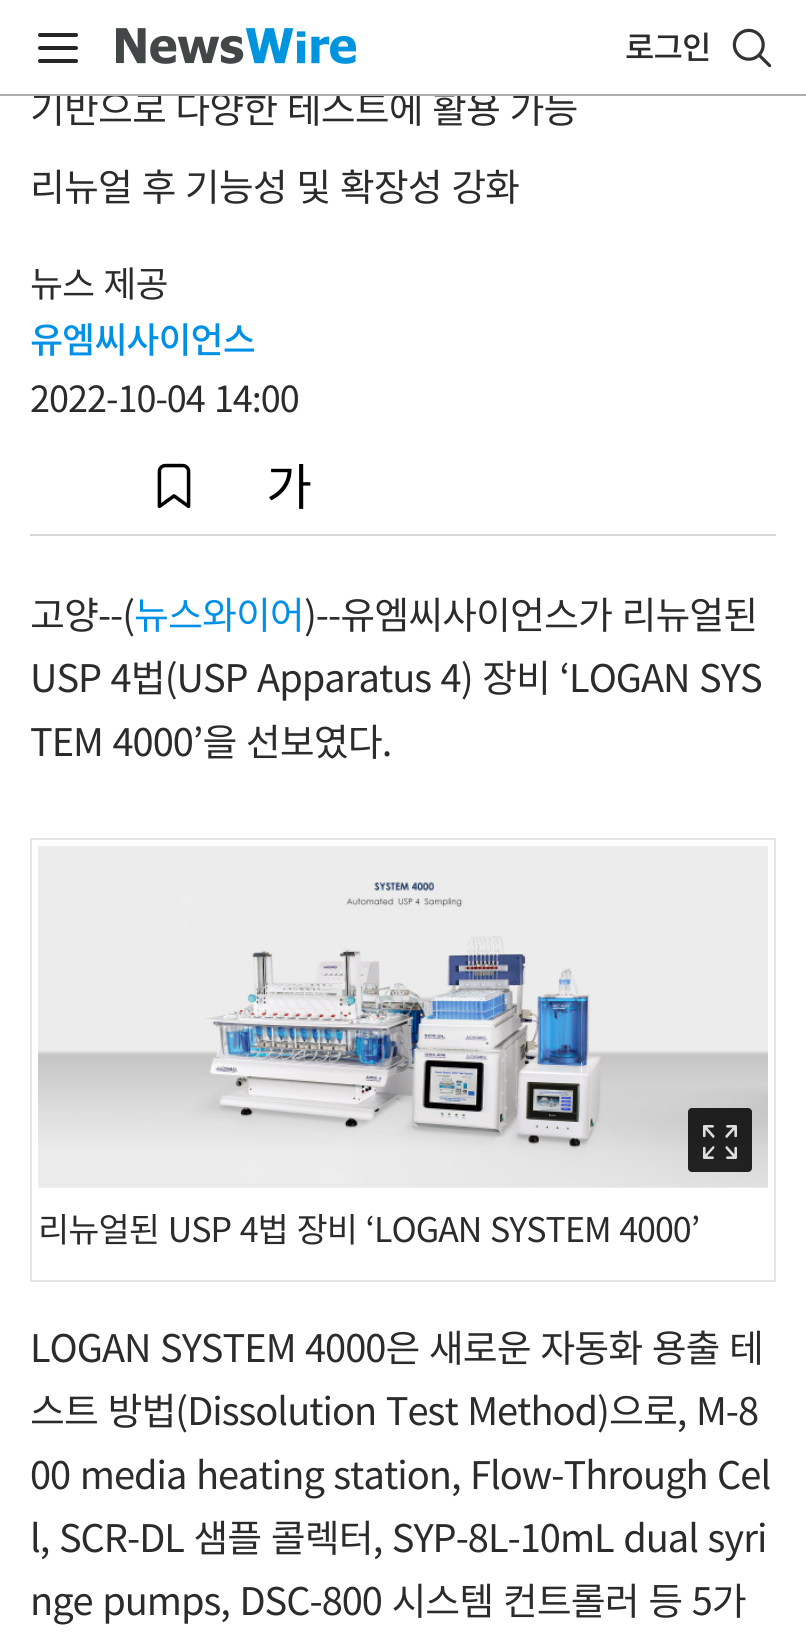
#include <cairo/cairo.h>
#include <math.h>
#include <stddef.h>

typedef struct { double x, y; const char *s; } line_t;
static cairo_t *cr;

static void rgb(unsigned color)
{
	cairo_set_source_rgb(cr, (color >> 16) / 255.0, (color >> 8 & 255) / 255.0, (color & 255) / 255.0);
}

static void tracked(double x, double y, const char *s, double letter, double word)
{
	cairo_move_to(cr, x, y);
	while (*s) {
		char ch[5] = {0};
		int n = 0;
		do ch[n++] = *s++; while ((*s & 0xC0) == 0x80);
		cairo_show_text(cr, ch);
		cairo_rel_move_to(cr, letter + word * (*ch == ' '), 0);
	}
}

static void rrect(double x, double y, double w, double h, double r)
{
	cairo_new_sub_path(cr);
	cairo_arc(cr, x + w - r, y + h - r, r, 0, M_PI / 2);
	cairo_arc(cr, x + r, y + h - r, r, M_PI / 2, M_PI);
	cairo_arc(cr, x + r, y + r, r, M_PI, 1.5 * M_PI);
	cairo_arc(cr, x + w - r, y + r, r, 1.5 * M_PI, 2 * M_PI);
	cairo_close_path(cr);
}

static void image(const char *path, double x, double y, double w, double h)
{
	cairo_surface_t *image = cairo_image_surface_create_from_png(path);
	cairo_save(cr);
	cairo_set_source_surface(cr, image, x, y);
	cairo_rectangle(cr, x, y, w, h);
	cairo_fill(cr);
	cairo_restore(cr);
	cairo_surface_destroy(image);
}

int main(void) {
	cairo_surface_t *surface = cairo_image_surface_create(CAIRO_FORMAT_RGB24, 806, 1652);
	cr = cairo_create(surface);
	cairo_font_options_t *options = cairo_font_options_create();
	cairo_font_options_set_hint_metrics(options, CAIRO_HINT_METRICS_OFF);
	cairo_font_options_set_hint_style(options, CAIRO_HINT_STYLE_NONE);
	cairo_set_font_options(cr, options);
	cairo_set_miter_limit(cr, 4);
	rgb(0xffffff);
	cairo_paint(cr);
	image("img/1.png", 38, 33, 40, 30);
	image("img/2.png", 116, 28, 240, 36);
	image("img/3.png", 732, 28, 40, 40);
	rgb(0xd6d6d6);
	cairo_rectangle(cr, 30, 534, 746, 2);
	cairo_fill(cr);
	image("img/4.png", 157, 463, 34, 46);
	image("img/5.png", 269, 464, 42, 45);
	cairo_rectangle(cr, 31, 839, 744, 442);
	rgb(0xe5e5e5);
	cairo_stroke(cr);
	image("img/6.png", 38, 846, 730, 342);
	cairo_set_source_rgba(cr, 0, 0, 0, 0.85);
	rrect(688, 1108, 64, 64, 4);
	cairo_fill(cr);
	image("img/7.png", 703, 1125, 34, 34);
	cairo_select_font_face(cr, "Noto Sans KR Medium", CAIRO_FONT_SLANT_NORMAL, CAIRO_FONT_WEIGHT_NORMAL);
	cairo_set_font_size(cr, 32);
	rgb(0x2b2b2b);
	tracked(625, 59, "로그인", -1, 0);
	cairo_select_font_face(cr, "Noto Sans KR", CAIRO_FONT_SLANT_NORMAL, CAIRO_FONT_WEIGHT_NORMAL);
	cairo_set_font_size(cr, 38);
	tracked(30, 123, "기반으로 다양한 테스트에 활용 가능", -1, 2);
	rgb(0xadadad);
	cairo_rectangle(cr, 0, 94, 806, 2);
	cairo_fill(cr);
	rgb(0xffffff);
	cairo_rectangle(cr, 56, 91, 497, 3);
	cairo_fill(cr);
	rgb(0x2b2b2b);
	tracked(30, 201, "리뉴얼 후 기능성 및 확장성 강화", -1, 2);
	cairo_set_font_size(cr, 36);
	tracked(30, 297, "뉴스 제공", -1, 2);
	cairo_select_font_face(cr, "Noto Sans KR Medium", CAIRO_FONT_SLANT_NORMAL, CAIRO_FONT_WEIGHT_NORMAL);
	rgb(0x0091e6);
	tracked(30, 353, "유엠씨사이언스", -1, 0);
	cairo_select_font_face(cr, "Noto Sans KR", CAIRO_FONT_SLANT_NORMAL, CAIRO_FONT_WEIGHT_NORMAL);
	rgb(0x2b2b2b);
	tracked(30, 412, "2022-10-04 14:00", -1, 2);
	cairo_set_font_size(cr, 38);
	tracked(30, 629, "고양--(", -1, 0);
	rgb(0x0091e6);
	tracked(134, 629, "뉴스와이어", -1, 0);
	rgb(0x2b2b2b);
	{
		static const line_t items[] = {
			{304, 629, ")--유엠씨사이언스가 리뉴얼된"},
			{30, 692, "USP 4법(USP Apparatus 4) 장비 ‘LOGAN SYS"},
			{30, 756, "TEM 4000’을 선보였다."},
		};
		for (size_t i = 0; i < sizeof items / sizeof *items; i++) {
			tracked(items[i].x, items[i].y, items[i].s, -1, 2);
		}
	}
	cairo_set_font_size(cr, 34);
	tracked(38, 1242, "리뉴얼된 USP 4법 장비 ‘LOGAN SYSTEM 4000’", -1, 2);
	cairo_set_font_size(cr, 38);
	{
		static const line_t items[] = {
			{30, 1362, "LOGAN SYSTEM 4000은 새로운 자동화 용출 테"},
			{30, 1425, "스트 방법(Dissolution Test Method)으로, M-8"},
			{30, 1489, "00 media heating station, Flow-Through Cel"},
			{30, 1552, "l, SCR-DL 샘플 콜렉터, SYP-8L-10mL dual syri"},
			{30, 1615, "nge pumps, DSC-800 시스템 컨트롤러 등 5가"},
		};
		for (size_t i = 0; i < sizeof items / sizeof *items; i++) {
			tracked(items[i].x, items[i].y, items[i].s, -1, 2);
		}
	}
	cairo_surface_write_to_png(surface, "page.png");
	cairo_font_options_destroy(options);
	cairo_destroy(cr);
	cairo_surface_destroy(surface);
	return 0;
}
